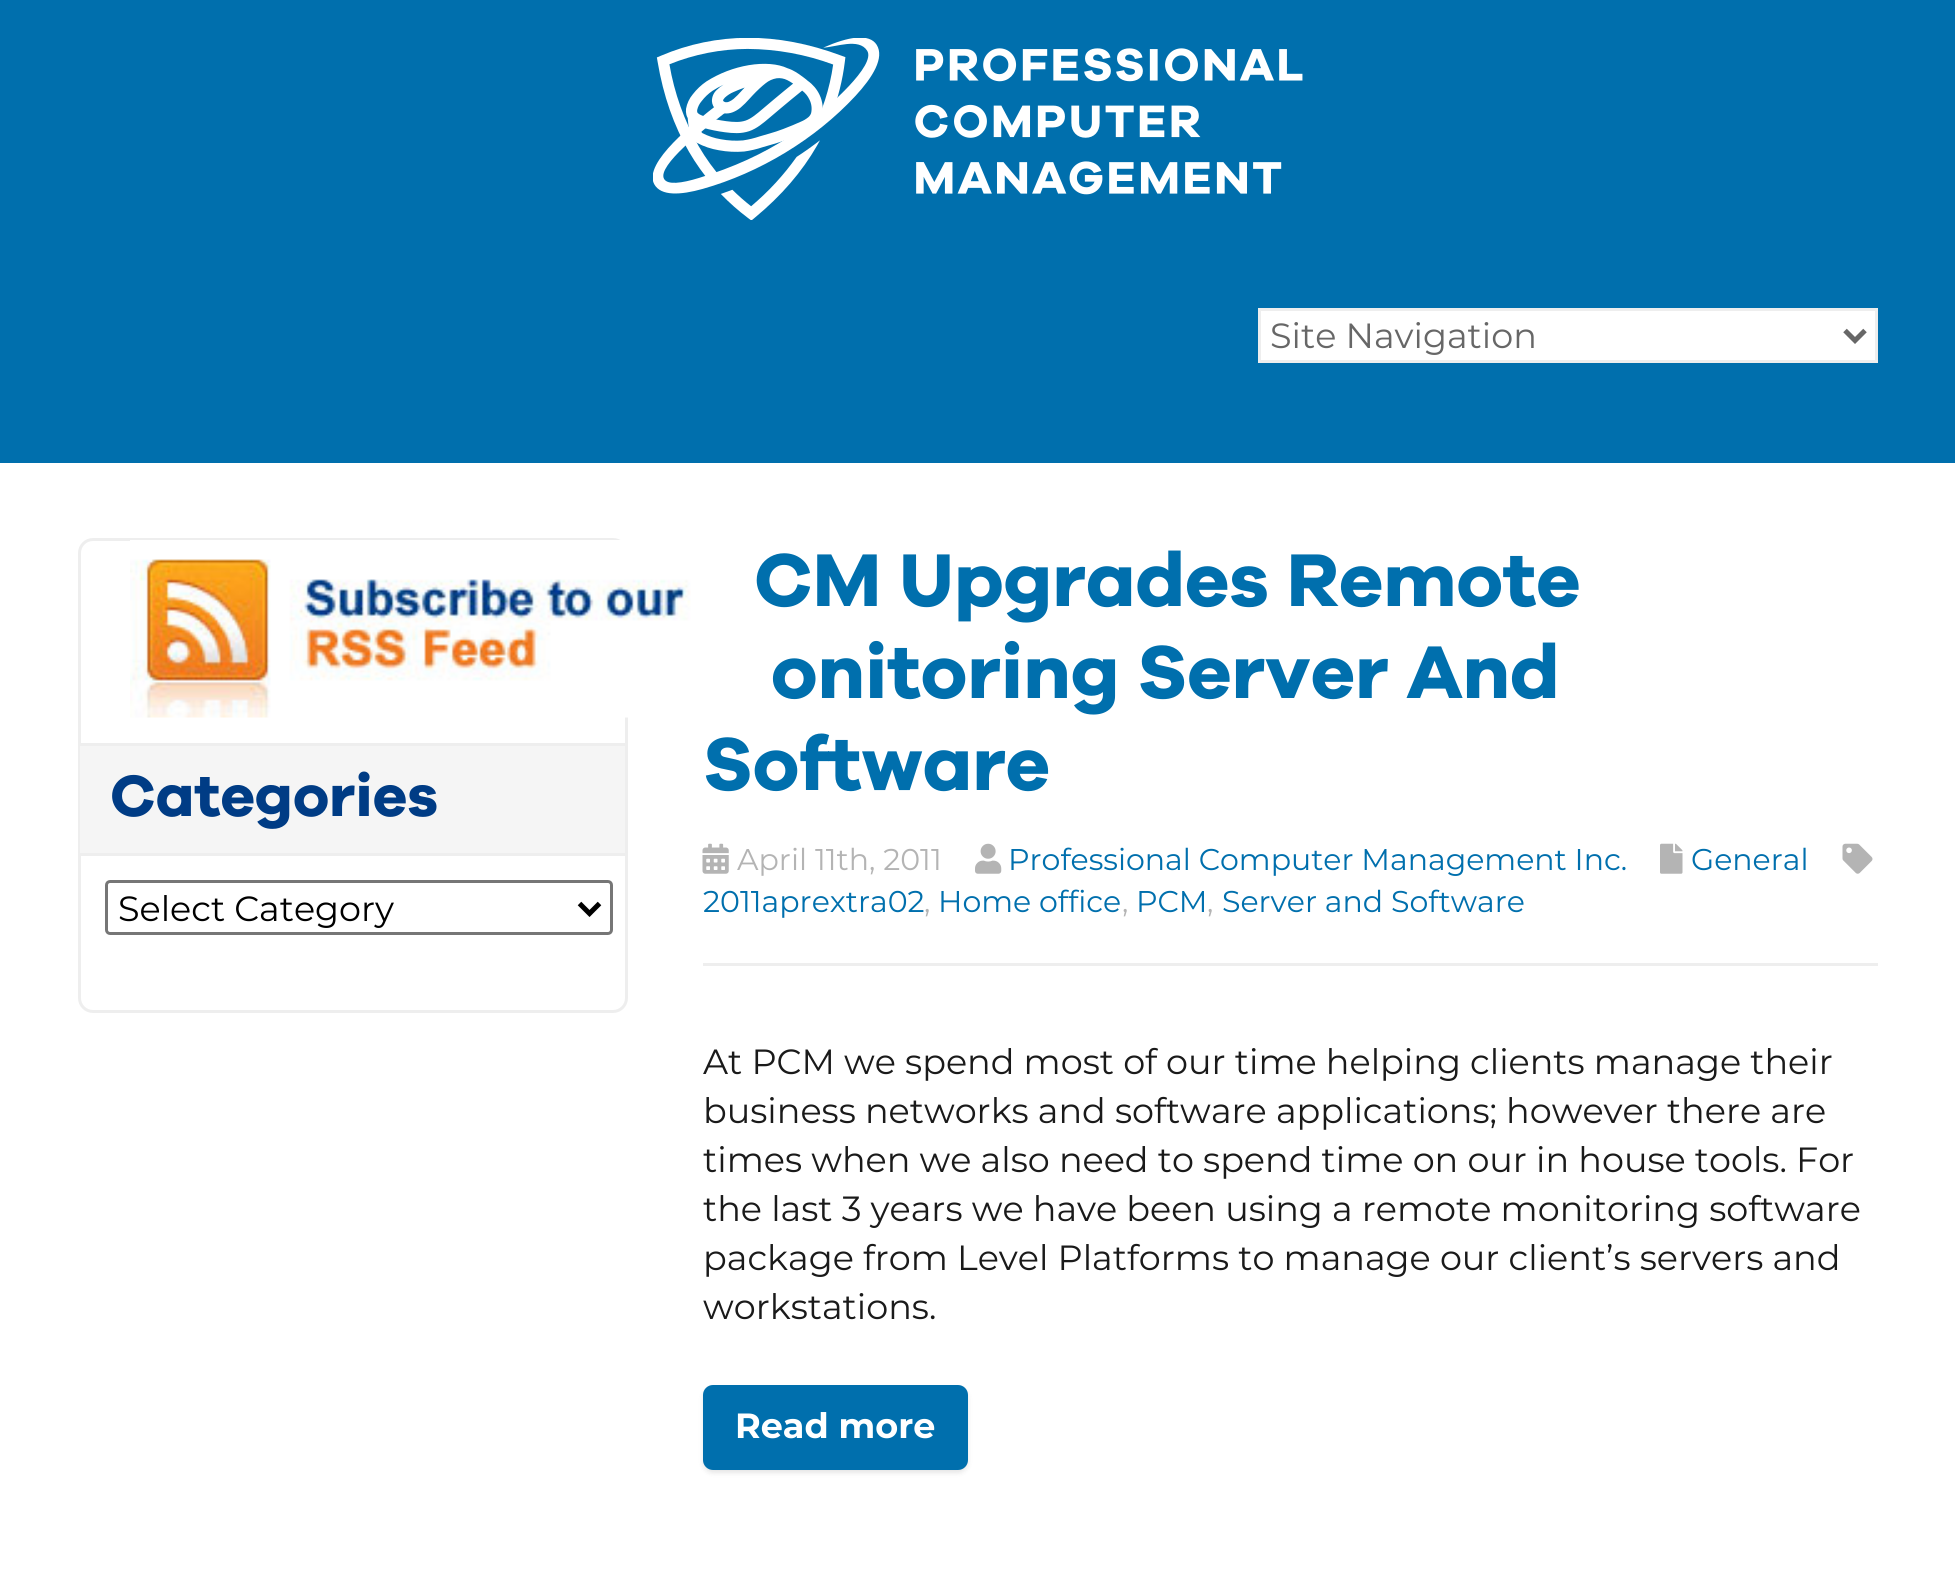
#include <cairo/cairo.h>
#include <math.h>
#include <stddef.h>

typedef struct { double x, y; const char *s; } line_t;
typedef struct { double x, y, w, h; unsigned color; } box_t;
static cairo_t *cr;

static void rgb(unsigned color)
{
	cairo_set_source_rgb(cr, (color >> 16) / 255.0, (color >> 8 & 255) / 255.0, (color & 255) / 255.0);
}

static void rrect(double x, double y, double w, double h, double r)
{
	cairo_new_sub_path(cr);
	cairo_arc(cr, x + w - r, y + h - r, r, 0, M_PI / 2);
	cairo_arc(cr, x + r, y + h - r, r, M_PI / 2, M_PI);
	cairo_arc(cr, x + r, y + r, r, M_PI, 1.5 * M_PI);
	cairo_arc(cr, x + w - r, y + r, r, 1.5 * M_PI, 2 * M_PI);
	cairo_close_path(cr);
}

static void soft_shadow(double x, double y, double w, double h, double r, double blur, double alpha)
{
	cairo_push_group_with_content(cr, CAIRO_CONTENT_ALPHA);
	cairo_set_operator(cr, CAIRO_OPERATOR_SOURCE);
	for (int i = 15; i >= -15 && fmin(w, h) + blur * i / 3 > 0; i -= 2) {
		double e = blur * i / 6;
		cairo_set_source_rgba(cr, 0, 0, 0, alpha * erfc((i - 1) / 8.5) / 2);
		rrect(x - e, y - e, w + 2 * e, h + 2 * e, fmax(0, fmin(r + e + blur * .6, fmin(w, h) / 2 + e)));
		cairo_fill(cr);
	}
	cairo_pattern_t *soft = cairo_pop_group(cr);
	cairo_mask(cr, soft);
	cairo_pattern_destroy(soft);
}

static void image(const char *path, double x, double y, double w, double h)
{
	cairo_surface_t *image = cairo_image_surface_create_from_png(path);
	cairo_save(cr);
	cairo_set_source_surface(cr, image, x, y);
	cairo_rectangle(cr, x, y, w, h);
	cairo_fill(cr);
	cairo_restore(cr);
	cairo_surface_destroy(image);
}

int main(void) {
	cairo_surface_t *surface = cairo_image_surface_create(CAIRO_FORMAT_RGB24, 1955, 1593);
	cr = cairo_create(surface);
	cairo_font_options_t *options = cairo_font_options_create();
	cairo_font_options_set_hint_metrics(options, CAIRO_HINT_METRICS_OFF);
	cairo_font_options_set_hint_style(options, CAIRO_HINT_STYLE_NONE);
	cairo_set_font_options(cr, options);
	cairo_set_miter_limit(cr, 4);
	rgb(0xffffff);
	cairo_paint(cr);
	rgb(0x006fad);
	cairo_rectangle(cr, 0, 0, 1955, 463);
	cairo_fill(cr);
	image("img/1.png", 653, 38, 650, 182);
	rgb(0xffffff);
	cairo_rectangle(cr, 1259.5, 309.5, 617, 52);
	cairo_fill_preserve(cr);
	rgb(0xeeeeee);
	cairo_set_line_width(cr, 3);
	cairo_stroke(cr);
	cairo_new_path(cr);
	cairo_move_to(cr, 1845, 330.5);
	cairo_line_to(cr, 1855, 340.5);
	cairo_line_to(cr, 1865, 330.5);
	rgb(0x676767);
	cairo_set_line_width(cr, 5);
	cairo_stroke(cr);
	rrect(79.5, 539.5, 547, 472, 13.5);
	rgb(0xeeeeee);
	cairo_set_line_width(cr, 3);
	cairo_stroke(cr);
	image("img/2.png", 130, 540, 623, 178);
	{
		static const box_t items[] = {
			{80, 746, 545, 107, 0xf5f5f5},
			{80, 743, 545, 3, 0xeeeeee},
			{80, 853, 545, 3, 0xeeeeee},
		};
		for (size_t i = 0; i < sizeof items / sizeof *items; i++) {
			rgb(items[i].color);
			cairo_rectangle(cr, items[i].x, items[i].y, items[i].w, items[i].h);
			cairo_fill(cr);
		}
	}
	rrect(106.5, 881.5, 505, 52, 3.5);
	rgb(0x767676);
	cairo_stroke(cr);
	cairo_new_path(cr);
	cairo_move_to(cr, 579.5, 903.5);
	cairo_line_to(cr, 589.5, 913.5);
	cairo_line_to(cr, 599.5, 903.5);
	rgb(0x000000);
	cairo_set_line_width(cr, 5);
	cairo_stroke(cr);
	rgb(0xeeeeee);
	cairo_rectangle(cr, 703, 963, 1175, 3);
	cairo_fill(cr);
	image("img/3.png", 702, 843, 27, 31);
	image("img/4.png", 975, 843, 27, 31);
	image("img/5.png", 1660, 843, 23, 31);
	image("img/6.png", 1842, 843, 31, 31);
	rgb(0x000000);
	soft_shadow(703, 1388, 265, 85, 10, 2.5, 0.1);
	rgb(0x006fad);
	rrect(704.5, 1386.5, 262, 82, 8.5);
	cairo_fill_preserve(cr);
	cairo_set_line_width(cr, 3);
	cairo_stroke(cr);
	cairo_select_font_face(cr, "Montserrat", CAIRO_FONT_SLANT_NORMAL, CAIRO_FONT_WEIGHT_NORMAL);
	cairo_set_font_size(cr, 35);
	rgb(0x676767);
	cairo_move_to(cr, 1270, 348);
	cairo_show_text(cr, "Site Navigation");
	cairo_select_font_face(cr, "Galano", CAIRO_FONT_SLANT_NORMAL, CAIRO_FONT_WEIGHT_BOLD);
	cairo_set_font_size(cr, 60);
	rgb(0x003c85);
	cairo_move_to(cr, 110, 816);
	cairo_show_text(cr, "Categories");
	cairo_select_font_face(cr, "Montserrat", CAIRO_FONT_SLANT_NORMAL, CAIRO_FONT_WEIGHT_NORMAL);
	cairo_set_font_size(cr, 35);
	rgb(0x000000);
	cairo_move_to(cr, 118, 921);
	cairo_show_text(cr, "Select Category");
	cairo_select_font_face(cr, "Galano", CAIRO_FONT_SLANT_NORMAL, CAIRO_FONT_WEIGHT_BOLD);
	cairo_set_font_size(cr, 77);
	rgb(0x006fad);
	{
		static const line_t items[] = {
			{754, 606, "CM Upgrades Remote"},
			{771, 698, "onitoring Server And"},
			{703, 790, "Software"},
		};
		for (size_t i = 0; i < sizeof items / sizeof *items; i++) {
			cairo_move_to(cr, items[i].x, items[i].y);
			cairo_show_text(cr, items[i].s);
		}
	}
	cairo_select_font_face(cr, "Montserrat", CAIRO_FONT_SLANT_NORMAL, CAIRO_FONT_WEIGHT_NORMAL);
	cairo_set_font_size(cr, 30);
	rgb(0xb4b4b4);
	cairo_move_to(cr, 737, 870);
	cairo_show_text(cr, "April 11th, 2011");
	rgb(0x006fad);
	{
		static const line_t items[] = {
			{1008, 870, "Professional Computer Management Inc."},
			{1691, 870, "General"},
			{703, 912, "2011aprextra02"},
		};
		for (size_t i = 0; i < sizeof items / sizeof *items; i++) {
			cairo_move_to(cr, items[i].x, items[i].y);
			cairo_show_text(cr, items[i].s);
		}
	}
	rgb(0xb4b4b4);
	cairo_move_to(cr, 924, 912);
	cairo_show_text(cr, ",");
	rgb(0x006fad);
	cairo_move_to(cr, 938, 912);
	cairo_show_text(cr, "Home office");
	rgb(0xb4b4b4);
	cairo_move_to(cr, 1122, 912);
	cairo_show_text(cr, ",");
	rgb(0x006fad);
	cairo_move_to(cr, 1136, 912);
	cairo_show_text(cr, "PCM");
	rgb(0xb4b4b4);
	cairo_move_to(cr, 1207, 912);
	cairo_show_text(cr, ",");
	rgb(0x006fad);
	cairo_move_to(cr, 1222, 912);
	cairo_show_text(cr, "Server and Software");
	cairo_set_font_size(cr, 35);
	rgb(0x1a1a1a);
	{
		static const line_t items[] = {
			{703, 1074, "At PCM we spend most of our time helping clients manage their"},
			{703, 1123, "business networks and software applications; however there are"},
			{703, 1172, "times when we also need to spend time on our in house tools. For"},
			{703, 1221, "the last 3 years we have been using a remote monitoring software"},
			{703, 1270, "package from Level Platforms to manage our client’s servers and"},
			{703, 1319, "workstations."},
		};
		for (size_t i = 0; i < sizeof items / sizeof *items; i++) {
			cairo_move_to(cr, items[i].x, items[i].y);
			cairo_show_text(cr, items[i].s);
		}
	}
	cairo_select_font_face(cr, "Montserrat", CAIRO_FONT_SLANT_NORMAL, CAIRO_FONT_WEIGHT_BOLD);
	rgb(0xffffff);
	cairo_move_to(cr, 735, 1438);
	cairo_show_text(cr, "Read more");
	cairo_surface_write_to_png(surface, "page.png");
	cairo_font_options_destroy(options);
	cairo_destroy(cr);
	cairo_surface_destroy(surface);
	return 0;
}
